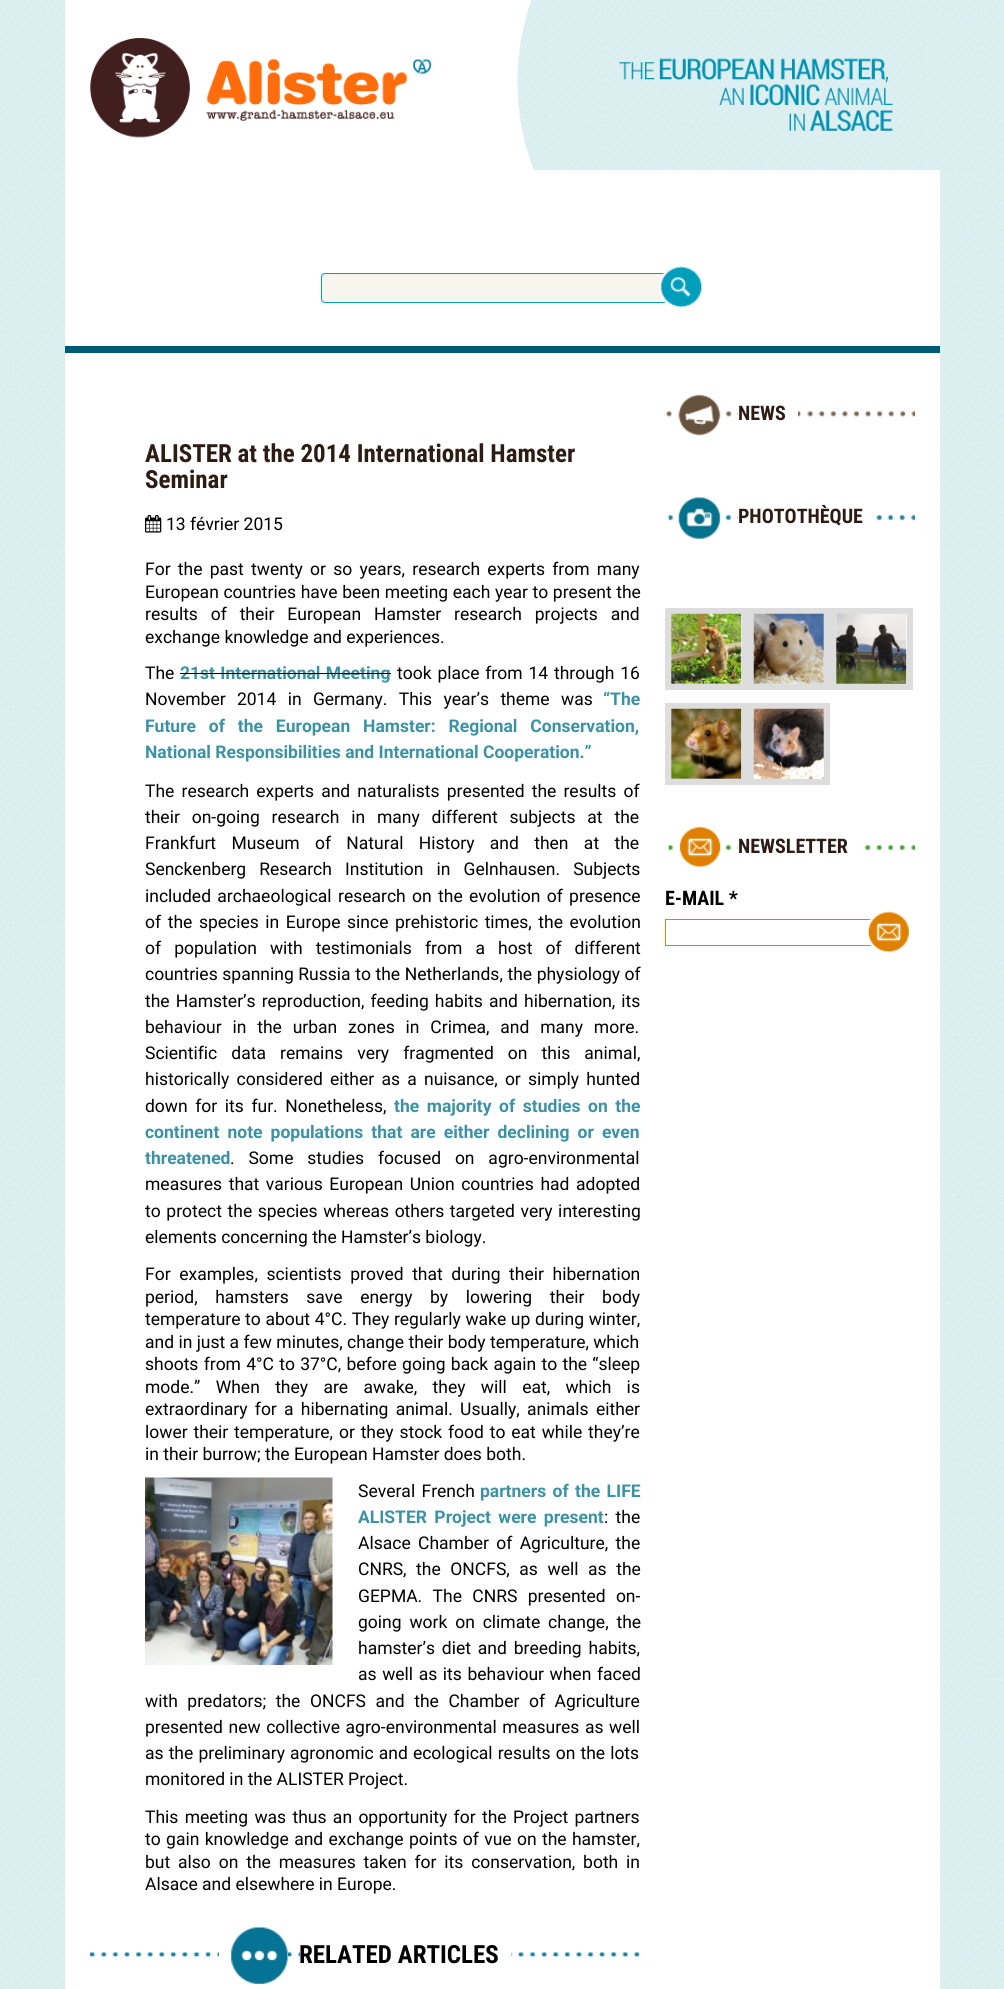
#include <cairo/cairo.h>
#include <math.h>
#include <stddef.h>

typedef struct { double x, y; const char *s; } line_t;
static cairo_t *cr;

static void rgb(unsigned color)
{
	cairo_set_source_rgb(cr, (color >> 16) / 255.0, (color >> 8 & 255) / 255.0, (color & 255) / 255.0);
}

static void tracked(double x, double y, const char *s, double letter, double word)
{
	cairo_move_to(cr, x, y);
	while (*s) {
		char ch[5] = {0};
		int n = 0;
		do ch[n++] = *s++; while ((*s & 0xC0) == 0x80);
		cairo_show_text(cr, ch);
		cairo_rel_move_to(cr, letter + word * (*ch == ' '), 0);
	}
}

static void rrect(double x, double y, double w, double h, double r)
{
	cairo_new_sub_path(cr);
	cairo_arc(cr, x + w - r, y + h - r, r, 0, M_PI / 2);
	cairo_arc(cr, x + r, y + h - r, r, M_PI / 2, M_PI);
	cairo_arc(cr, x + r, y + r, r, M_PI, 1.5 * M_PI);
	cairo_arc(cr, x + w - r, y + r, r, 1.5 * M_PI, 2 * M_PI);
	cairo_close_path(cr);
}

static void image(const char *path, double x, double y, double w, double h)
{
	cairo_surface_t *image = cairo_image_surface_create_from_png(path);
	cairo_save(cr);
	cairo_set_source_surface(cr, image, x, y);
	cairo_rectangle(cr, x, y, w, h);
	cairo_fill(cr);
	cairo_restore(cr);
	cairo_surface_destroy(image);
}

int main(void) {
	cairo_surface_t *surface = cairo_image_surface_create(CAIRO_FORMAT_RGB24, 1004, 1989);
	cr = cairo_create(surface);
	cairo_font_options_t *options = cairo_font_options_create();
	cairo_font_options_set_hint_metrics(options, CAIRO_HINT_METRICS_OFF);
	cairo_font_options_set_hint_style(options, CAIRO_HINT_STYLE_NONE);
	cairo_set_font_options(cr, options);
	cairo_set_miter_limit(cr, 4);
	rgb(0xffffff);
	cairo_paint(cr);
	image("img/1.png", 0, 0, 1004, 1989);
	image("img/2.png", 65, 0, 828, 170);
	rgb(0xffffff);
	rrect(65, 170, 875, 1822, 2.5);
	cairo_fill(cr);
	cairo_new_path(cr);
	cairo_move_to(cr, 67.5, 170);
	cairo_line_to(cr, 937.5, 170);
	cairo_curve_to(cr, 939, 170, 940, 171, 940, 172.5);
	cairo_line_to(cr, 940, 234);
	cairo_line_to(cr, 65, 234);
	cairo_line_to(cr, 65, 172.5);
	cairo_curve_to(cr, 65, 171, 66, 170, 67.5, 170);
	cairo_close_path(cr);
	cairo_fill(cr);
	rgb(0xf7f5ed);
	rrect(321.5, 273.5, 346, 29, 3.5);
	cairo_fill_preserve(cr);
	rgb(0x009fbc);
	cairo_set_line_width(cr, 1);
	cairo_stroke(cr);
	image("img/3.png", 658, 266, 44, 42);
	rgb(0x005978);
	cairo_rectangle(cr, 65, 346, 875, 7);
	cairo_fill(cr);
	image("img/4.png", 145, 515, 17, 18);
	image("img/5.png", 145, 1477, 188, 188);
	image("img/6.png", 90, 1952, 550, 5);
	rgb(0xffffff);
	cairo_rectangle(cr, 219, 1952, 69, 5);
	cairo_fill(cr);
	cairo_rectangle(cr, 300, 1952, 211, 5);
	cairo_fill(cr);
	image("img/7.png", 231, 1927, 57, 57);
	image("img/8.png", 666, 411, 249, 6);
	image("img/9.png", 677, 394, 44, 42);
	cairo_rectangle(cr, 738, 411, 60, 6);
	cairo_fill(cr);
	image("img/10.png", 668, 514, 247, 7);
	image("img/11.png", 678, 497, 43, 42);
	cairo_rectangle(cr, 738, 514, 133, 7);
	cairo_fill(cr);
	cairo_rectangle(cr, 668, 611, 77, 76);
	rgb(0xdddddd);
	cairo_set_line_width(cr, 6);
	cairo_stroke(cr);
	image("img/12.png", 671, 613, 71, 71);
	cairo_rectangle(cr, 751, 611, 76, 76);
	cairo_stroke(cr);
	image("img/13.png", 753, 613, 71, 71);
	cairo_rectangle(cr, 833, 611, 77, 76);
	cairo_stroke(cr);
	image("img/14.png", 836, 613, 71, 71);
	cairo_rectangle(cr, 668, 706, 77, 76);
	cairo_stroke(cr);
	image("img/15.png", 671, 708, 71, 71);
	cairo_rectangle(cr, 751, 706, 76, 76);
	cairo_stroke(cr);
	image("img/16.png", 753, 708, 71, 71);
	image("img/17.png", 668, 844, 247, 7);
	image("img/18.png", 678, 826, 43, 42);
	rgb(0xffffff);
	cairo_rectangle(cr, 738, 844, 121, 7);
	cairo_fill(cr);
	cairo_rectangle(cr, 665.5, 919.5, 214, 26);
	rgb(0xe08000);
	cairo_set_line_width(cr, 1);
	cairo_stroke(cr);
	image("img/19.png", 868, 911, 41, 42);
	cairo_select_font_face(cr, "Roboto Condensed", CAIRO_FONT_SLANT_NORMAL, CAIRO_FONT_WEIGHT_BOLD);
	cairo_set_font_size(cr, 25);
	rgb(0x2c1c14);
	cairo_move_to(cr, 145, 462);
	cairo_show_text(cr, "ALISTER at the 2014 International Hamster");
	cairo_move_to(cr, 145, 488);
	cairo_show_text(cr, "Seminar");
	cairo_select_font_face(cr, "Roboto", CAIRO_FONT_SLANT_NORMAL, CAIRO_FONT_WEIGHT_NORMAL);
	cairo_set_font_size(cr, 17.5);
	rgb(0x000000);
	cairo_move_to(cr, 166, 530);
	cairo_show_text(cr, "13 février 2015");
	tracked(145, 575, "For the past twenty or so years, research experts from many", 0, 2.9);
	tracked(145, 598, "European countries have been meeting each year to present the", 0, 0.25);
	tracked(145, 620, "results of their European Hamster research projects and", 0, 8.5);
	cairo_move_to(cr, 145, 643);
	cairo_show_text(cr, "exchange knowledge and experiences.");
	cairo_move_to(cr, 145, 679);
	cairo_show_text(cr, "The");
	cairo_select_font_face(cr, "Roboto", CAIRO_FONT_SLANT_NORMAL, CAIRO_FONT_WEIGHT_BOLD);
	rgb(0x3b92a5);
	tracked(180, 679, "21st International Meeting", 0, 1);
	rgb(0x000000);
	cairo_rectangle(cr, 180, 673, 211, 1);
	cairo_fill(cr);
	cairo_select_font_face(cr, "Roboto", CAIRO_FONT_SLANT_NORMAL, CAIRO_FONT_WEIGHT_NORMAL);
	tracked(397, 679, "took place from 14 through 16", 0, 1.5);
	tracked(145, 705, "November 2014 in Germany. This year’s theme was", 0, 7);
	cairo_select_font_face(cr, "Roboto", CAIRO_FONT_SLANT_NORMAL, CAIRO_FONT_WEIGHT_BOLD);
	rgb(0x3b92a5);
	cairo_move_to(cr, 603, 705);
	cairo_show_text(cr, "“The");
	tracked(145, 732, "Future of the European Hamster: Regional Conservation,", 0, 8.5);
	cairo_move_to(cr, 145, 758);
	cairo_show_text(cr, "National Responsibilities and International Cooperation.”");
	cairo_select_font_face(cr, "Roboto", CAIRO_FONT_SLANT_NORMAL, CAIRO_FONT_WEIGHT_NORMAL);
	rgb(0x000000);
	tracked(145, 797, "The research experts and naturalists presented the results of", 0, 2.75);
	tracked(145, 823, "their on-going research in many different subjects at the", 0, 7.5);
	tracked(145, 849, "Frankfurt Museum of Natural History and then at the", 0, 11);
	tracked(145, 875, "Senckenberg Research Institution in Gelnhausen. Subjects", 0, 8.75);
	tracked(145, 902, "included archaeological research on the evolution of presence", 0, 2);
	tracked(145, 928, "of the species in Europe since prehistoric times, the evolution", 0, 2.25);
	tracked(145, 954, "of population with testimonials from a host of different", 0, 8.75);
	tracked(145, 980, "countries spanning Russia to the Netherlands, the physiology of", 0, 0.25);
	tracked(145, 1007, "the Hamster’s reproduction, feeding habits and hibernation, its", 0, 1.75);
	tracked(145, 1033, "behaviour in the urban zones in Crimea, and many more.", 0, 6.5);
	tracked(145, 1059, "Scientific data remains very fragmented on this animal,", 0, 9.75);
	tracked(145, 1085, "historically considered either as a nuisance, or simply hunted", 0, 2.9);
	tracked(145, 1112, "down for its fur. Nonetheless,", 0, 3.25);
	cairo_select_font_face(cr, "Roboto", CAIRO_FONT_SLANT_NORMAL, CAIRO_FONT_WEIGHT_BOLD);
	rgb(0x3b92a5);
	tracked(394, 1112, "the majority of studies on the", 0, 3.25);
	tracked(145, 1138, "continent note populations that are either declining or even", 0, 3.75);
	cairo_move_to(cr, 145, 1164);
	cairo_show_text(cr, "threatened");
	cairo_select_font_face(cr, "Roboto", CAIRO_FONT_SLANT_NORMAL, CAIRO_FONT_WEIGHT_NORMAL);
	rgb(0x000000);
	tracked(230, 1164, ". Some studies focused on agro-environmental", 0, 9.5);
	tracked(145, 1190, "measures that various European Union countries had adopted", 0, 2.25);
	tracked(145, 1217, "to protect the species whereas others targeted very interesting", 0, 1.25);
	cairo_move_to(cr, 145, 1243);
	cairo_show_text(cr, "elements concerning the Hamster’s biology.");
	tracked(145, 1280, "For examples, scientists proved that during their hibernation", 0, 4.25);
	tracked(145, 1303, "period, hamsters save energy by lowering their body", 0, 13.25);
	tracked(145, 1325, "temperature to about 4°C. They regularly wake up during winter,", 0, 0.25);
	cairo_move_to(cr, 145, 1348);
	cairo_show_text(cr, "and in just a few minutes, change their body temperature, which");
	tracked(145, 1370, "shoots from 4°C to 37°C, before going back again to the “sleep", 0, 0.9);
	tracked(145, 1393, "mode.” When they are awake, they will eat, which is", 0, 11);
	tracked(145, 1415, "extraordinary for a hibernating animal. Usually, animals either", 0, 2.9);
	tracked(145, 1438, "lower their temperature, or they stock food to eat while they’re", 0, 1.5);
	cairo_move_to(cr, 145, 1460);
	cairo_show_text(cr, "in their burrow; the European Hamster does both.");
	tracked(358, 1497, "Several French", 0, 2);
	cairo_select_font_face(cr, "Roboto", CAIRO_FONT_SLANT_NORMAL, CAIRO_FONT_WEIGHT_BOLD);
	rgb(0x3b92a5);
	tracked(480, 1497, "partners of the LIFE", 0, 2);
	tracked(358, 1523, "ALISTER Project were present", 0, 3);
	cairo_select_font_face(cr, "Roboto", CAIRO_FONT_SLANT_NORMAL, CAIRO_FONT_WEIGHT_NORMAL);
	rgb(0x000000);
	tracked(604, 1523, ": the", 0, 3);
	tracked(358, 1549, "Alsace Chamber of Agriculture, the", 0, 3);
	tracked(358, 1575, "CNRS, the ONCFS, as well as the", 0, 5.25);
	tracked(358, 1602, "GEPMA. The CNRS presented on-", 0, 6);
	tracked(358, 1628, "going work on climate change, the", 0, 3.5);
	tracked(358, 1654, "hamster’s diet and breeding habits,", 0, 2.5);
	tracked(358, 1680, "as well as its behaviour when faced", 0, 1.25);
	tracked(145, 1707, "with predators; the ONCFS and the Chamber of Agriculture", 0, 5.25);
	tracked(145, 1733, "presented new collective agro-environmental measures as well", 0, 1.25);
	tracked(145, 1759, "as the preliminary agronomic and ecological results on the lots", 0, 0.75);
	cairo_move_to(cr, 145, 1785);
	cairo_show_text(cr, "monitored in the ALISTER Project.");
	tracked(145, 1823, "This meeting was thus an opportunity for the Project partners", 0, 2);
	tracked(145, 1845, "to gain knowledge and exchange points of vue on the hamster,", 0, 1);
	tracked(145, 1868, "but also on the measures taken for its conservation, both in", 0, 3.5);
	cairo_move_to(cr, 145, 1890);
	cairo_show_text(cr, "Alsace and elsewhere in Europe.");
	cairo_select_font_face(cr, "Roboto Condensed", CAIRO_FONT_SLANT_NORMAL, CAIRO_FONT_WEIGHT_BOLD);
	cairo_set_font_size(cr, 25);
	cairo_move_to(cr, 299, 1963);
	cairo_show_text(cr, "RELATED ARTICLES");
	cairo_set_font_size(cr, 20);
	rgb(0x2c1c14);
	{
		static const line_t items[] = {
			{738, 420, "NEWS"},
			{738, 523, "PHOTOTHÈQUE"},
			{738, 853, "NEWSLETTER"},
		};
		for (size_t i = 0; i < sizeof items / sizeof *items; i++) {
			cairo_move_to(cr, items[i].x, items[i].y);
			cairo_show_text(cr, items[i].s);
		}
	}
	rgb(0x000000);
	cairo_move_to(cr, 665, 905);
	cairo_show_text(cr, "E-MAIL *");
	cairo_surface_write_to_png(surface, "page.png");
	cairo_font_options_destroy(options);
	cairo_destroy(cr);
	cairo_surface_destroy(surface);
	return 0;
}
